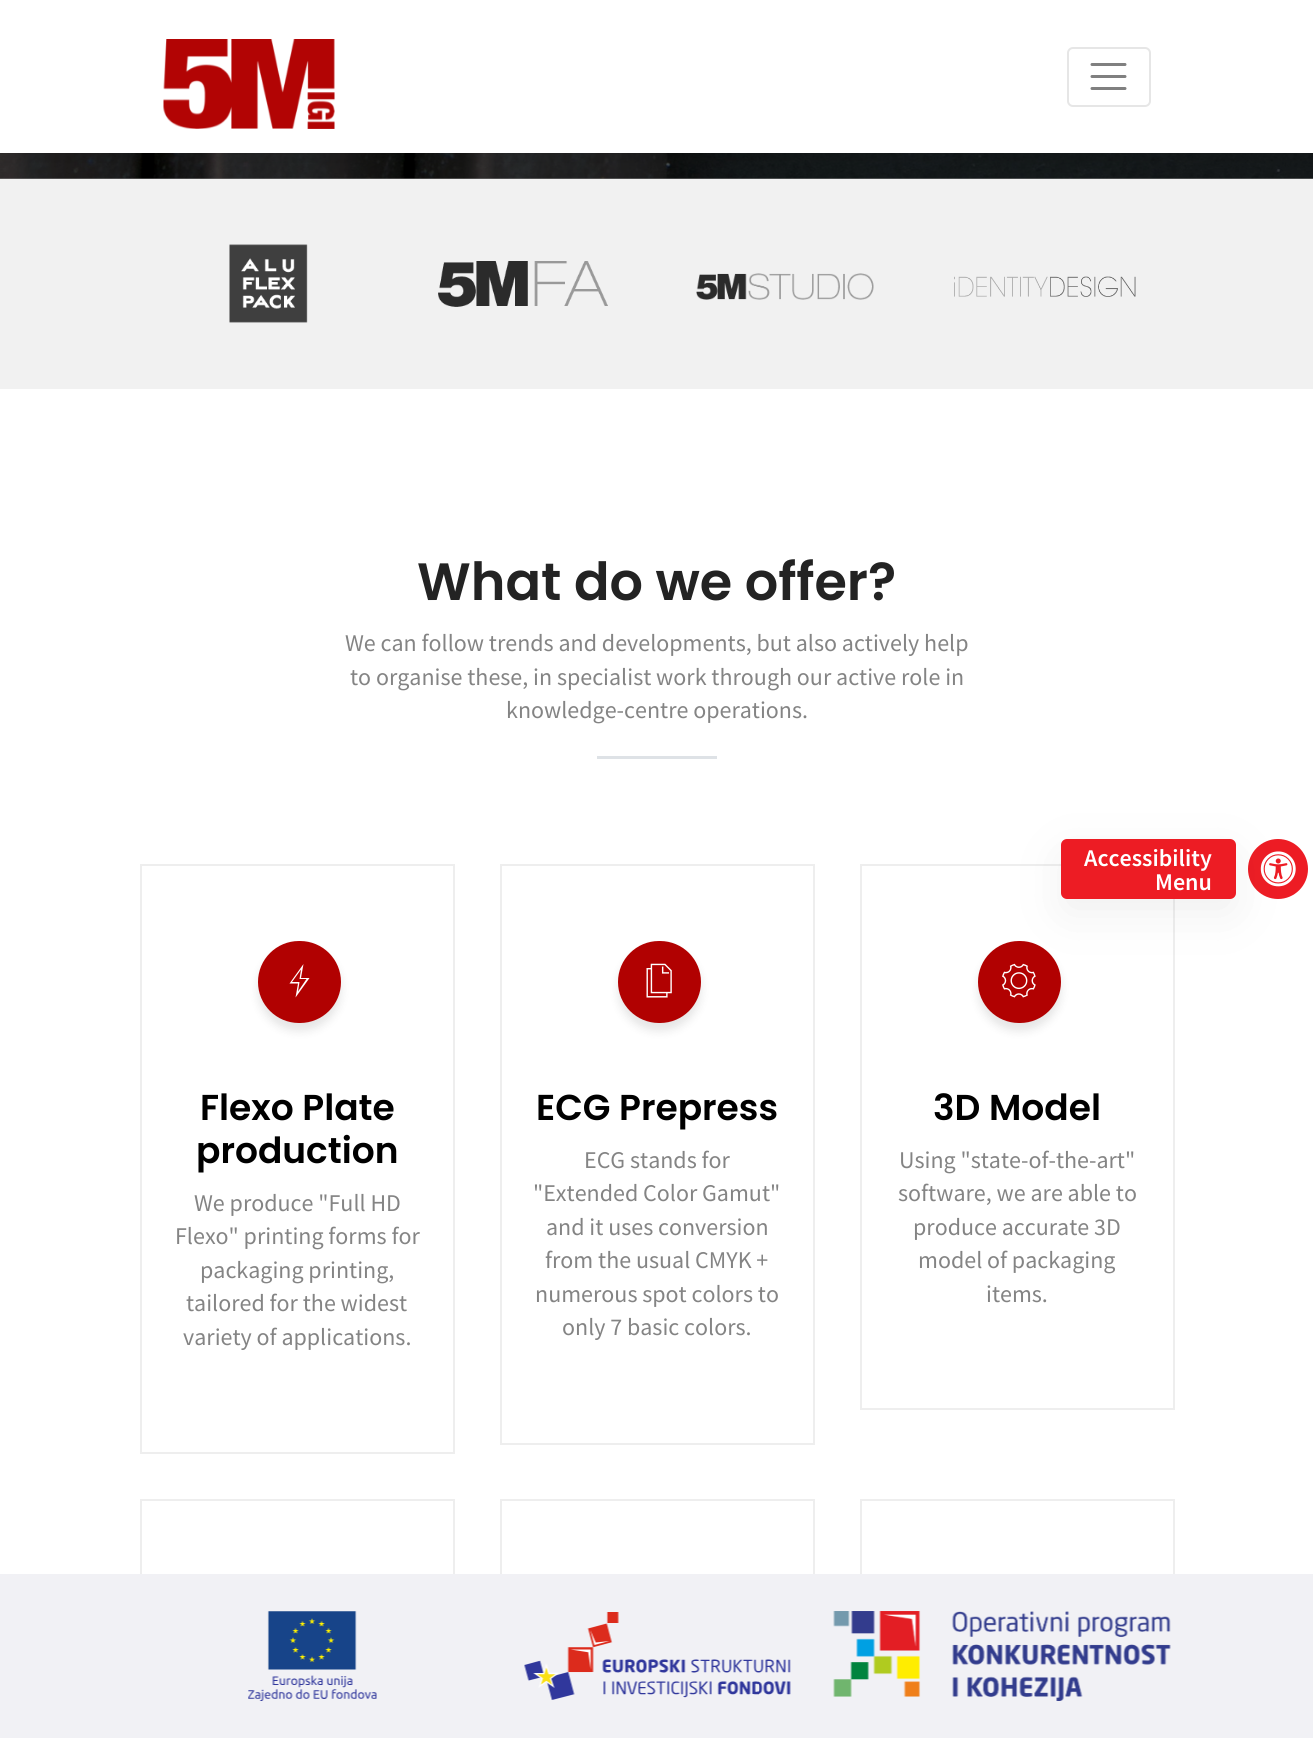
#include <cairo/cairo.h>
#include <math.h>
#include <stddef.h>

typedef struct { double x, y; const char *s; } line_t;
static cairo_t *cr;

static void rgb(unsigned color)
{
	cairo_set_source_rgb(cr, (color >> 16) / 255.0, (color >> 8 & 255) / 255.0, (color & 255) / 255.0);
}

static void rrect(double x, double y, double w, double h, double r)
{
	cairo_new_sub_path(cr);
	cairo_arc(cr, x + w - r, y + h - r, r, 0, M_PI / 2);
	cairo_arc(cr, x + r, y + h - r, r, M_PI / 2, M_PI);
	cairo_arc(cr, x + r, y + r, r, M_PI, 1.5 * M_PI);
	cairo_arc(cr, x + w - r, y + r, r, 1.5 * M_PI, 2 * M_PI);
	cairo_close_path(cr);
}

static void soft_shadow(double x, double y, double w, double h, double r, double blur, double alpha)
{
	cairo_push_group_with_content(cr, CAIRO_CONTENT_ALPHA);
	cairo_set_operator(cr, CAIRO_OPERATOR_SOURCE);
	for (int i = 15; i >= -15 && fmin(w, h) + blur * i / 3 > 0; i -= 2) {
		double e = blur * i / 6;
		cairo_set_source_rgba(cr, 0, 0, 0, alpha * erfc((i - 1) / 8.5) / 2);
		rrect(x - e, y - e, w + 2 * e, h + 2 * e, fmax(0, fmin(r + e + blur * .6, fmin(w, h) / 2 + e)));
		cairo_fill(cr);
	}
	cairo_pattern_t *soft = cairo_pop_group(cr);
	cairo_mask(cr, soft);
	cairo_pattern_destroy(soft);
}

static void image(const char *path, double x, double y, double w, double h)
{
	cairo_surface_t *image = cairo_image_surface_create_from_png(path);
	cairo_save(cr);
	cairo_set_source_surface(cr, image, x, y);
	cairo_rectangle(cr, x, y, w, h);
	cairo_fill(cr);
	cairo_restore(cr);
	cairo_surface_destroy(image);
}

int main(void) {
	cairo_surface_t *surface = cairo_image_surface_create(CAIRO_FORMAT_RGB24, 1313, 1738);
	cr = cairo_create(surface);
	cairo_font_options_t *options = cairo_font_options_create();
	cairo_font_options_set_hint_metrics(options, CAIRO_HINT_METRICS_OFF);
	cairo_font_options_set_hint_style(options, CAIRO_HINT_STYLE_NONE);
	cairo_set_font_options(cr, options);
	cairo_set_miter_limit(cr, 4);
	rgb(0xffffff);
	cairo_paint(cr);
	rgb(0x808080);
	cairo_rectangle(cr, 0, 178, 1313, 1);
	cairo_fill(cr);
	image("img/2.png", 0, 153, 1313, 26);
	rgb(0xf1f1f1);
	cairo_rectangle(cr, 0, 179, 1313, 210);
	cairo_fill(cr);
	rgb(0x000000);
	soft_shadow(0, 6, 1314, 153, 0, 7.5, 0.06);
	rgb(0xffffff);
	cairo_rectangle(cr, 0, 0, 1313, 153);
	cairo_fill(cr);
	image("img/1.png", 163, 39, 172, 90);
	rrect(1068, 48, 82, 58, 5);
	rgb(0xe6e6e6);
	cairo_stroke(cr);
	cairo_new_path(cr);
	cairo_move_to(cr, 1092, 64.5);
	cairo_line_to(cr, 1125, 64.5);
	cairo_move_to(cr, 1092, 76.5);
	cairo_line_to(cr, 1125, 76.5);
	cairo_move_to(cr, 1092, 88.5);
	cairo_line_to(cr, 1125, 88.5);
	rgb(0x808080);
	cairo_set_line_width(cr, 3);
	cairo_set_line_cap(cr, CAIRO_LINE_CAP_ROUND);
	cairo_stroke(cr);
	image("img/3.png", 229, 244, 79, 79);
	image("img/4.png", 438, 261, 170, 46);
	image("img/5.png", 696, 273, 178, 27);
	image("img/6.png", 954, 276, 182, 21);
	rgb(0xdee2e6);
	cairo_rectangle(cr, 597, 756, 120, 3);
	cairo_fill(cr);
	cairo_rectangle(cr, 141, 865, 313, 588);
	rgb(0xeeeeee);
	cairo_set_line_width(cr, 2);
	cairo_set_line_cap(cr, CAIRO_LINE_CAP_BUTT);
	cairo_stroke(cr);
	rgb(0x000000);
	soft_shadow(258, 948, 83, 83, 41.5, 4.5, 0.1);
	rgb(0xb10101);
	rrect(258, 941, 83, 82, 41);
	cairo_fill(cr);
	rgb(0xffffff);
	cairo_new_path(cr);
	cairo_move_to(cr, 301, 969.5);
	cairo_line_to(cr, 292, 982);
	cairo_line_to(cr, 299.5, 982);
	cairo_line_to(cr, 298, 991.5);
	cairo_line_to(cr, 306.5, 979);
	cairo_line_to(cr, 299.5, 979);
	cairo_close_path(cr);
	cairo_move_to(cr, 303.5, 964);
	cairo_line_to(cr, 301, 978);
	cairo_line_to(cr, 309.5, 978);
	cairo_line_to(cr, 295.5, 997.5);
	cairo_line_to(cr, 298, 983.5);
	cairo_line_to(cr, 289.5, 983.5);
	cairo_close_path(cr);
	cairo_fill(cr);
	cairo_rectangle(cr, 501, 865, 313, 579);
	rgb(0xeeeeee);
	cairo_stroke(cr);
	rgb(0x000000);
	soft_shadow(618, 948, 83, 83, 41.5, 4.5, 0.1);
	rgb(0xb10101);
	rrect(618, 941, 83, 82, 41);
	cairo_fill(cr);
	image("img/7.png", 646, 963, 26, 35);
	cairo_rectangle(cr, 861, 865, 313, 544);
	rgb(0xeeeeee);
	cairo_stroke(cr);
	rgb(0x000000);
	soft_shadow(978, 948, 83, 83, 41.5, 4.5, 0.1);
	rgb(0xb10101);
	rrect(978, 941, 83, 82, 41);
	cairo_fill(cr);
	image("img/8.png", 1002, 963, 34, 35);
	cairo_rectangle(cr, 141, 1500, 313, 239);
	rgb(0xeeeeee);
	cairo_stroke(cr);
	cairo_rectangle(cr, 501, 1500, 313, 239);
	cairo_stroke(cr);
	cairo_rectangle(cr, 861, 1500, 313, 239);
	cairo_stroke(cr);
	rgb(0xed1c24);
	cairo_arc(cr, 1278, 869, 30, 0, 2 * M_PI);
	cairo_fill(cr);
	image("img/9.png", 1260, 851, 36, 36);
	rgb(0x666666);
	soft_shadow(1061, 854, 175, 60, 6, 22.5, 0.1);
	rgb(0xed1c24);
	rrect(1061, 839, 175, 60, 6);
	cairo_fill(cr);
	rgb(0xf1f1f5);
	cairo_rectangle(cr, 0, 1574, 1313, 164);
	cairo_fill(cr);
	image("img/10.png", 248, 1611, 129, 90);
	image("img/11.png", 524, 1612, 267, 88);
	image("img/12.png", 833, 1611, 338, 90);
	cairo_select_font_face(cr, "Poppins SemiBold", CAIRO_FONT_SLANT_NORMAL, CAIRO_FONT_WEIGHT_NORMAL);
	cairo_set_font_size(cr, 52.5);
	rgb(0x232323);
	cairo_move_to(cr, 417, 600);
	cairo_show_text(cr, "What do we offer?");
	cairo_select_font_face(cr, "Source Sans Pro", CAIRO_FONT_SLANT_NORMAL, CAIRO_FONT_WEIGHT_NORMAL);
	cairo_set_font_size(cr, 24);
	rgb(0x848484);
	{
		static const line_t items[] = {
			{345, 651, "We can follow trends and developments, but also actively help"},
			{350, 685, "to organise these, in specialist work through our active role in"},
			{506, 718, "knowledge-centre operations."},
		};
		for (size_t i = 0; i < sizeof items / sizeof *items; i++) {
			cairo_move_to(cr, items[i].x, items[i].y);
			cairo_show_text(cr, items[i].s);
		}
	}
	cairo_select_font_face(cr, "Poppins SemiBold", CAIRO_FONT_SLANT_NORMAL, CAIRO_FONT_WEIGHT_NORMAL);
	cairo_set_font_size(cr, 36);
	rgb(0x000000);
	cairo_move_to(cr, 200, 1120);
	cairo_show_text(cr, "Flexo Plate");
	cairo_move_to(cr, 196, 1163);
	cairo_show_text(cr, "production");
	cairo_select_font_face(cr, "Source Sans Pro", CAIRO_FONT_SLANT_NORMAL, CAIRO_FONT_WEIGHT_NORMAL);
	cairo_set_font_size(cr, 24);
	rgb(0x848484);
	{
		static const line_t items[] = {
			{194, 1211, "We produce \"Full HD"},
			{175, 1244, "Flexo\" printing forms for"},
			{200, 1278, "packaging printing,"},
			{186, 1311, "tailored for the widest"},
			{183, 1345, "variety of applications."},
		};
		for (size_t i = 0; i < sizeof items / sizeof *items; i++) {
			cairo_move_to(cr, items[i].x, items[i].y);
			cairo_show_text(cr, items[i].s);
		}
	}
	cairo_select_font_face(cr, "Poppins SemiBold", CAIRO_FONT_SLANT_NORMAL, CAIRO_FONT_WEIGHT_NORMAL);
	cairo_set_font_size(cr, 36);
	rgb(0x000000);
	cairo_move_to(cr, 536, 1120);
	cairo_show_text(cr, "ECG Prepress");
	cairo_select_font_face(cr, "Source Sans Pro", CAIRO_FONT_SLANT_NORMAL, CAIRO_FONT_WEIGHT_NORMAL);
	cairo_set_font_size(cr, 24);
	rgb(0x848484);
	{
		static const line_t items[] = {
			{584, 1168, "ECG stands for"},
			{533, 1201, "\"Extended Color Gamut\""},
			{546, 1235, "and it uses conversion"},
			{545, 1268, "from the usual CMYK +"},
			{535, 1302, "numerous spot colors to"},
			{562, 1335, "only 7 basic colors."},
		};
		for (size_t i = 0; i < sizeof items / sizeof *items; i++) {
			cairo_move_to(cr, items[i].x, items[i].y);
			cairo_show_text(cr, items[i].s);
		}
	}
	cairo_select_font_face(cr, "Poppins SemiBold", CAIRO_FONT_SLANT_NORMAL, CAIRO_FONT_WEIGHT_NORMAL);
	cairo_set_font_size(cr, 36);
	rgb(0x000000);
	cairo_move_to(cr, 933, 1120);
	cairo_show_text(cr, "3D Model");
	cairo_select_font_face(cr, "Source Sans Pro", CAIRO_FONT_SLANT_NORMAL, CAIRO_FONT_WEIGHT_NORMAL);
	cairo_set_font_size(cr, 24);
	rgb(0x848484);
	{
		static const line_t items[] = {
			{899, 1168, "Using \"state-of-the-art\""},
			{898, 1201, "software, we are able to"},
			{913, 1235, "produce accurate 3D"},
			{918, 1268, "model of packaging"},
			{986, 1302, "items."},
		};
		for (size_t i = 0; i < sizeof items / sizeof *items; i++) {
			cairo_move_to(cr, items[i].x, items[i].y);
			cairo_show_text(cr, items[i].s);
		}
	}
	cairo_select_font_face(cr, "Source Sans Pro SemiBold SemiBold", CAIRO_FONT_SLANT_NORMAL, CAIRO_FONT_WEIGHT_NORMAL);
	rgb(0xffffff);
	cairo_move_to(cr, 1084, 866);
	cairo_show_text(cr, "Accessibility");
	cairo_move_to(cr, 1155, 890);
	cairo_show_text(cr, "Menu");
	cairo_surface_write_to_png(surface, "page.png");
	cairo_font_options_destroy(options);
	cairo_destroy(cr);
	cairo_surface_destroy(surface);
	return 0;
}
